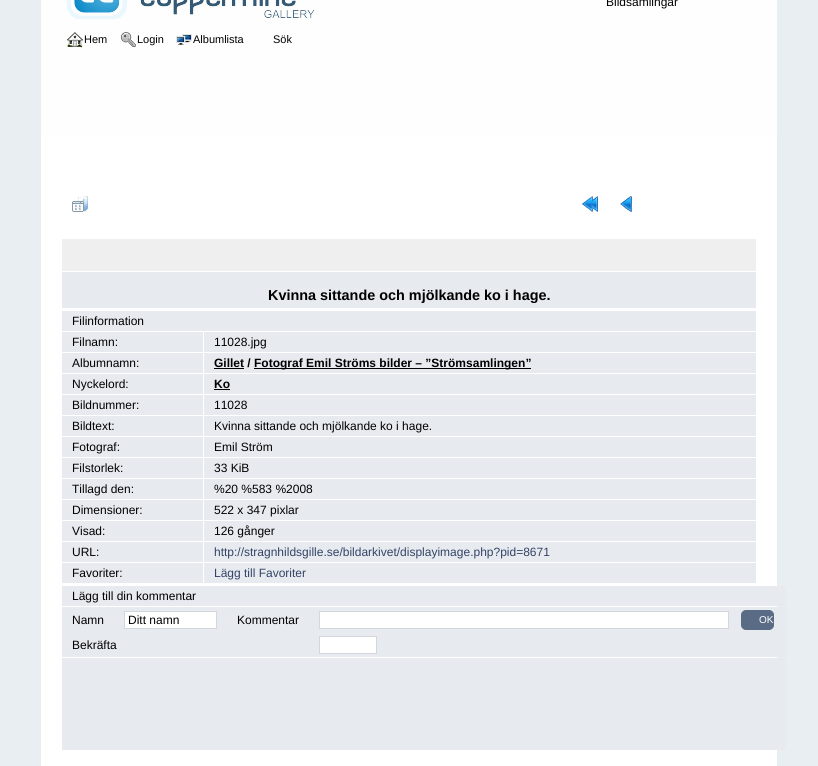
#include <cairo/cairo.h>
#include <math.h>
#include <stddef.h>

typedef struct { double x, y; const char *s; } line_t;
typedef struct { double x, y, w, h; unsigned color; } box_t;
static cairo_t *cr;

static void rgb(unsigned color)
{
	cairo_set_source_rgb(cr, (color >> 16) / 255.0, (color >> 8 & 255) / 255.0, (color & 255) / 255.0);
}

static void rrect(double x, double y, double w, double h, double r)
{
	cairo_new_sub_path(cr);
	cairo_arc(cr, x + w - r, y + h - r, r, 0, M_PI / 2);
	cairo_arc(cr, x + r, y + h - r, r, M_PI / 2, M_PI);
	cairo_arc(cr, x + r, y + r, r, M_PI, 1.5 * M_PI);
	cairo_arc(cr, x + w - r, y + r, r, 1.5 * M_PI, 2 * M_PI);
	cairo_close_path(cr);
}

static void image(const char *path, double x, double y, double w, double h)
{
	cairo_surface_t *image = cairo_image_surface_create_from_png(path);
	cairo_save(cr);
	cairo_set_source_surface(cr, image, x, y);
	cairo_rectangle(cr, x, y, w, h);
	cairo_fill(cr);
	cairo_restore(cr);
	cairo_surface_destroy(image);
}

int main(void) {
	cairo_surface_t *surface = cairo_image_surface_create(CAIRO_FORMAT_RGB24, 818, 766);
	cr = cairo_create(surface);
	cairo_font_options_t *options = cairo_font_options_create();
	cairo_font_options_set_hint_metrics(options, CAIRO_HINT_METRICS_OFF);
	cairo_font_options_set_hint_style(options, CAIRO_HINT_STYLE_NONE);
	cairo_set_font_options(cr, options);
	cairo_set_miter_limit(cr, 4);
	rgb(0xe9eef2);
	cairo_paint(cr);
	rgb(0xfefefe);
	cairo_rectangle(cr, 41, 0, 736, 135);
	cairo_fill(cr);
	image("img/1.png", 66, 0, 249, 20);
	image("img/2.png", 67, 32, 16, 16);
	image("img/3.png", 121, 32, 15, 15);
	image("img/4.png", 176, 34, 16, 11);
	rgb(0xffffff);
	cairo_rectangle(cr, 41, 135, 736, 631);
	cairo_fill(cr);
	image("img/5.png", 72, 196, 16, 16);
	image("img/6.png", 582, 196, 16, 16);
	image("img/7.png", 620, 196, 12, 16);
	{
		static const box_t items[] = {
			{62, 239, 694, 32, 0xefefef},
			{62, 272, 694, 36, 0xe7eaef},
			{62, 311, 694, 20, 0xe7eaef},
			{62, 332, 141, 20, 0xe7eaef},
			{204, 332, 552, 20, 0xe7eaef},
			{62, 353, 141, 20, 0xe7eaef},
			{204, 353, 552, 20, 0xe7eaef},
			{214, 368, 30, 1, 0x000000},
			{254, 368, 277, 1, 0x000000},
			{62, 374, 141, 20, 0xe7eaef},
			{204, 374, 552, 20, 0xe7eaef},
			{214, 389, 16, 1, 0x000000},
			{62, 395, 141, 20, 0xe7eaef},
			{204, 395, 552, 20, 0xe7eaef},
			{62, 416, 141, 20, 0xe7eaef},
			{204, 416, 552, 20, 0xe7eaef},
			{62, 437, 141, 20, 0xe7eaef},
			{204, 437, 552, 20, 0xe7eaef},
			{62, 458, 141, 20, 0xe7eaef},
			{204, 458, 552, 20, 0xe7eaef},
			{62, 479, 141, 20, 0xe7eaef},
			{204, 479, 552, 20, 0xe7eaef},
			{62, 500, 141, 20, 0xe7eaef},
			{204, 500, 552, 20, 0xe7eaef},
			{62, 521, 141, 20, 0xe7eaef},
			{204, 521, 552, 20, 0xe7eaef},
			{62, 542, 141, 20, 0xe7eaef},
			{204, 542, 552, 20, 0xe7eaef},
			{62, 563, 141, 20, 0xe7eaef},
			{204, 563, 552, 20, 0xe7eaef},
			{62, 586, 724, 20, 0xe7eaef},
			{62, 607, 724, 26, 0xe7eaef},
		};
		for (size_t i = 0; i < sizeof items / sizeof *items; i++) {
			rgb(items[i].color);
			cairo_rectangle(cr, items[i].x, items[i].y, items[i].w, items[i].h);
			cairo_fill(cr);
		}
	}
	rgb(0xffffff);
	cairo_rectangle(cr, 124.5, 611.5, 92, 17);
	cairo_fill_preserve(cr);
	rgb(0xd1d7dc);
	cairo_set_line_width(cr, 1);
	cairo_stroke(cr);
	rgb(0xffffff);
	cairo_rectangle(cr, 319.5, 611.5, 409, 17);
	cairo_fill_preserve(cr);
	rgb(0xd1d7dc);
	cairo_stroke(cr);
	rgb(0x5a6c85);
	rrect(741.5, 610.5, 32, 19, 4.5);
	cairo_fill_preserve(cr);
	cairo_stroke(cr);
	rgb(0xe7eaef);
	cairo_rectangle(cr, 62, 633, 724, 24);
	cairo_fill(cr);
	rgb(0xffffff);
	cairo_rectangle(cr, 319.5, 636.5, 57, 17);
	cairo_fill_preserve(cr);
	rgb(0xd1d7dc);
	cairo_stroke(cr);
	rgb(0xe7eaef);
	cairo_rectangle(cr, 62, 658, 724, 92);
	cairo_fill(cr);
	cairo_select_font_face(cr, "Liberation Sans", CAIRO_FONT_SLANT_NORMAL, CAIRO_FONT_WEIGHT_NORMAL);
	cairo_set_font_size(cr, 12);
	rgb(0x000000);
	cairo_move_to(cr, 606, 6);
	cairo_show_text(cr, "Bildsamlingar");
	cairo_set_font_size(cr, 11);
	{
		static const line_t items[] = {
			{84, 43, "Hem"},
			{137, 43, "Login"},
			{193, 43, "Albumlista"},
			{273, 43, "Sök"},
		};
		for (size_t i = 0; i < sizeof items / sizeof *items; i++) {
			cairo_move_to(cr, items[i].x, items[i].y);
			cairo_show_text(cr, items[i].s);
		}
	}
	cairo_select_font_face(cr, "Liberation Sans", CAIRO_FONT_SLANT_NORMAL, CAIRO_FONT_WEIGHT_BOLD);
	cairo_set_font_size(cr, 14.4);
	cairo_move_to(cr, 268, 300);
	cairo_show_text(cr, "Kvinna sittande och mjölkande ko i hage.");
	cairo_select_font_face(cr, "Liberation Sans", CAIRO_FONT_SLANT_NORMAL, CAIRO_FONT_WEIGHT_NORMAL);
	cairo_set_font_size(cr, 12);
	{
		static const line_t items[] = {
			{72, 325, "Filinformation"},
			{72, 346, "Filnamn:"},
			{214, 346, "11028.jpg"},
			{72, 367, "Albumnamn:"},
		};
		for (size_t i = 0; i < sizeof items / sizeof *items; i++) {
			cairo_move_to(cr, items[i].x, items[i].y);
			cairo_show_text(cr, items[i].s);
		}
	}
	cairo_select_font_face(cr, "Liberation Sans", CAIRO_FONT_SLANT_NORMAL, CAIRO_FONT_WEIGHT_BOLD);
	cairo_move_to(cr, 214, 367);
	cairo_show_text(cr, "Gillet /");
	cairo_move_to(cr, 254, 367);
	cairo_show_text(cr, "Fotograf Emil Ströms bilder – ”Strömsamlingen”");
	cairo_select_font_face(cr, "Liberation Sans", CAIRO_FONT_SLANT_NORMAL, CAIRO_FONT_WEIGHT_NORMAL);
	cairo_move_to(cr, 72, 388);
	cairo_show_text(cr, "Nyckelord:");
	cairo_select_font_face(cr, "Liberation Sans", CAIRO_FONT_SLANT_NORMAL, CAIRO_FONT_WEIGHT_BOLD);
	cairo_move_to(cr, 214, 388);
	cairo_show_text(cr, "Ko");
	cairo_select_font_face(cr, "Liberation Sans", CAIRO_FONT_SLANT_NORMAL, CAIRO_FONT_WEIGHT_NORMAL);
	{
		static const line_t items[] = {
			{72, 409, "Bildnummer:"},
			{214, 409, "11028"},
			{72, 430, "Bildtext:"},
			{214, 430, "Kvinna sittande och mjölkande ko i hage."},
			{72, 451, "Fotograf:"},
			{214, 451, "Emil Ström"},
			{72, 472, "Filstorlek:"},
			{214, 472, "33 KiB"},
			{72, 493, "Tillagd den:"},
			{214, 493, "%20 %583 %2008"},
			{72, 514, "Dimensioner:"},
			{214, 514, "522 x 347 pixlar"},
			{72, 535, "Visad:"},
			{214, 535, "126 gånger"},
			{72, 556, "URL:"},
		};
		for (size_t i = 0; i < sizeof items / sizeof *items; i++) {
			cairo_move_to(cr, items[i].x, items[i].y);
			cairo_show_text(cr, items[i].s);
		}
	}
	rgb(0x334466);
	cairo_move_to(cr, 214, 556);
	cairo_show_text(cr, "http://stragnhildsgille.se/bildarkivet/displayimage.php?pid=8671");
	rgb(0x000000);
	cairo_move_to(cr, 72, 577);
	cairo_show_text(cr, "Favoriter:");
	rgb(0x334466);
	cairo_move_to(cr, 214, 577);
	cairo_show_text(cr, "Lägg till Favoriter");
	rgb(0x000000);
	{
		static const line_t items[] = {
			{72, 600, "Lägg till din kommentar"},
			{72, 624, "Namn"},
			{128, 624, "Ditt namn"},
			{237, 624, "Kommentar"},
		};
		for (size_t i = 0; i < sizeof items / sizeof *items; i++) {
			cairo_move_to(cr, items[i].x, items[i].y);
			cairo_show_text(cr, items[i].s);
		}
	}
	cairo_set_font_size(cr, 10);
	rgb(0xffffff);
	cairo_move_to(cr, 759, 623);
	cairo_show_text(cr, "OK");
	cairo_set_font_size(cr, 12);
	rgb(0x000000);
	cairo_move_to(cr, 72, 649);
	cairo_show_text(cr, "Bekräfta");
	cairo_surface_write_to_png(surface, "page.png");
	cairo_font_options_destroy(options);
	cairo_destroy(cr);
	cairo_surface_destroy(surface);
	return 0;
}
